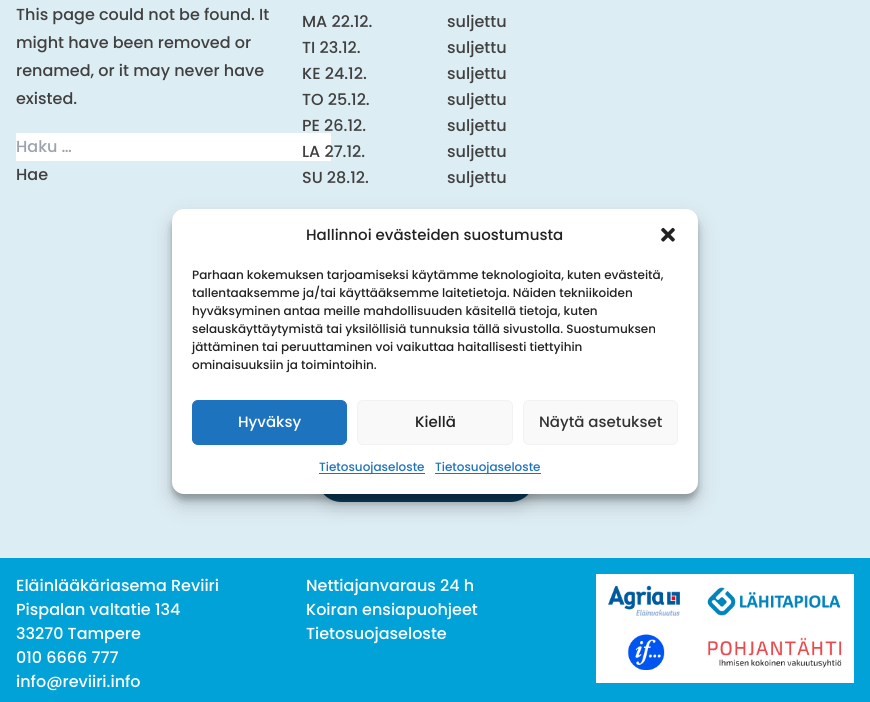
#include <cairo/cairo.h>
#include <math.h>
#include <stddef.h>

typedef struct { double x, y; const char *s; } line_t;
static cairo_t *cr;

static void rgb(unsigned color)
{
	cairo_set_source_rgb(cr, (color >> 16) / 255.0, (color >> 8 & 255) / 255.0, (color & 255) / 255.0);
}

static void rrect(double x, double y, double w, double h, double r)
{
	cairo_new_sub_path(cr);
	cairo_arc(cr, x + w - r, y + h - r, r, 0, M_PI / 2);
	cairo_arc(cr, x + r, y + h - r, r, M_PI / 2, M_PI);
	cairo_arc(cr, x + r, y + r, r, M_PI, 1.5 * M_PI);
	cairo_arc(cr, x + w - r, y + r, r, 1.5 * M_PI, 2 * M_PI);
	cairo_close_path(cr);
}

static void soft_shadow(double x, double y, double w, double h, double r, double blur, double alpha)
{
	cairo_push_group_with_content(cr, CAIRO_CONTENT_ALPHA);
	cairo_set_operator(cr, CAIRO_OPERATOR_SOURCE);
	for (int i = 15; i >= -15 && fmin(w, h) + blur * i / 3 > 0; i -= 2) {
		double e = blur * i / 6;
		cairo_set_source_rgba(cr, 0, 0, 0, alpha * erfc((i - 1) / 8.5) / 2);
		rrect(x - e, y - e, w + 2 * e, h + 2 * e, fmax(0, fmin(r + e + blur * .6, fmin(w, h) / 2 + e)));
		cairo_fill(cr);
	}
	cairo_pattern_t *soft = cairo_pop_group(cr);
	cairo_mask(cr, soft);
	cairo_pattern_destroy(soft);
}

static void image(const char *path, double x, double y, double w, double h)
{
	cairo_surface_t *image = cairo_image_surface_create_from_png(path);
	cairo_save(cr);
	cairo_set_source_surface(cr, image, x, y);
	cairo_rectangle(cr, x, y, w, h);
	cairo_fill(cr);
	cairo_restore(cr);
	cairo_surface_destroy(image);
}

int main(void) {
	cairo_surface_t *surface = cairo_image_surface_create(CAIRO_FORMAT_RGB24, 870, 702);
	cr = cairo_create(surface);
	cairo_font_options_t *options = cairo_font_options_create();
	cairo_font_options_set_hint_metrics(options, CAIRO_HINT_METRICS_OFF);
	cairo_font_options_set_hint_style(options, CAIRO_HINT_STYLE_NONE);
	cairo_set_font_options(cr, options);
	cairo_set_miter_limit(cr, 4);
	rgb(0xddedf4);
	cairo_paint(cr);
	rgb(0xffffff);
	cairo_rectangle(cr, 16, 133, 315, 28);
	cairo_fill(cr);
	rgb(0x000000);
	soft_shadow(321, 461, 210, 41, 20.5, 3, 0.1);
	soft_shadow(320, 466, 212, 43, 21.5, 7.5, 0.1);
	rgb(0x0a3c5b);
	rrect(317, 453, 218, 49, 24.5);
	cairo_fill(cr);
	rgb(0x00a2d7);
	cairo_rectangle(cr, 0, 558, 870, 144);
	cairo_fill(cr);
	image("img/1.png", 596, 574, 258, 109);
	rgb(0x000000);
	soft_shadow(172, 215, 526, 285, 12, 3, 0.23);
	soft_shadow(172, 219, 526, 285, 12, 10, 0.19);
	rgb(0xffffff);
	rrect(172, 209, 526, 285, 12);
	cairo_fill(cr);
	image("img/2.png", 661, 227, 14, 15);
	rgb(0x1e73be);
	rrect(192.5, 400.5, 154, 44, 5.5);
	cairo_fill_preserve(cr);
	cairo_set_line_width(cr, 1);
	cairo_stroke(cr);
	rgb(0xf9f9f9);
	rrect(357.5, 400.5, 155, 44, 5.5);
	cairo_fill_preserve(cr);
	rgb(0xf2f2f2);
	cairo_stroke(cr);
	rgb(0xf9f9f9);
	rrect(523.5, 400.5, 154, 44, 5.5);
	cairo_fill_preserve(cr);
	rgb(0xf2f2f2);
	cairo_stroke(cr);
	rgb(0x1e73be);
	cairo_rectangle(cr, 319, 473, 106, 1);
	cairo_fill(cr);
	cairo_rectangle(cr, 435, 473, 106, 1);
	cairo_fill(cr);
	cairo_select_font_face(cr, "Poppins Medium", CAIRO_FONT_SLANT_NORMAL, CAIRO_FONT_WEIGHT_NORMAL);
	cairo_set_font_size(cr, 16);
	rgb(0x404040);
	{
		static const line_t items[] = {
			{16, 20, "This page could not be found. It"},
			{16, 48, "might have been removed or"},
			{16, 76, "renamed, or it may never have"},
			{16, 104, "existed."},
		};
		for (size_t i = 0; i < sizeof items / sizeof *items; i++) {
			cairo_move_to(cr, items[i].x, items[i].y);
			cairo_show_text(cr, items[i].s);
		}
	}
	rgb(0x9ca3af);
	cairo_move_to(cr, 16, 152);
	cairo_show_text(cr, "Haku …");
	rgb(0x404040);
	{
		static const line_t items[] = {
			{16, 180, "Hae"},
			{302, 27, "MA 22.12."},
			{447, 27, "suljettu"},
			{302, 53, "TI 23.12."},
			{447, 53, "suljettu"},
			{302, 79, "KE 24.12."},
			{447, 79, "suljettu"},
			{302, 105, "TO 25.12."},
			{447, 105, "suljettu"},
			{302, 131, "PE 26.12."},
			{447, 131, "suljettu"},
			{302, 157, "LA 27.12."},
			{447, 157, "suljettu"},
			{302, 183, "SU 28.12."},
			{447, 183, "suljettu"},
		};
		for (size_t i = 0; i < sizeof items / sizeof *items; i++) {
			cairo_move_to(cr, items[i].x, items[i].y);
			cairo_show_text(cr, items[i].s);
		}
	}
	rgb(0xffffff);
	{
		static const line_t items[] = {
			{16, 591, "Eläinlääkäriasema Reviiri"},
			{16, 615, "Pispalan valtatie 134"},
			{16, 639, "33270 Tampere"},
			{16, 663, "010 6666 777"},
			{16, 687, "info@reviiri.info"},
			{306, 591, "Nettiajanvaraus 24 h"},
			{306, 615, "Koiran ensiapuohjeet"},
			{306, 639, "Tietosuojaseloste"},
		};
		for (size_t i = 0; i < sizeof items / sizeof *items; i++) {
			cairo_move_to(cr, items[i].x, items[i].y);
			cairo_show_text(cr, items[i].s);
		}
	}
	cairo_set_font_size(cr, 15);
	rgb(0x222222);
	cairo_move_to(cr, 306, 240);
	cairo_show_text(cr, "Hallinnoi evästeiden suostumusta");
	cairo_set_font_size(cr, 12);
	{
		static const line_t items[] = {
			{192, 279, "Parhaan kokemuksen tarjoamiseksi käytämme teknologioita, kuten evästeitä,"},
			{192, 297, "tallentaaksemme ja/tai käyttääksemme laitetietoja. Näiden tekniikoiden"},
			{192, 315, "hyväksyminen antaa meille mahdollisuuden käsitellä tietoja, kuten"},
			{192, 333, "selauskäyttäytymistä tai yksilöllisiä tunnuksia tällä sivustolla. Suostumuksen"},
			{192, 351, "jättäminen tai peruuttaminen voi vaikuttaa haitallisesti tiettyihin"},
			{192, 369, "ominaisuuksiin ja toimintoihin."},
		};
		for (size_t i = 0; i < sizeof items / sizeof *items; i++) {
			cairo_move_to(cr, items[i].x, items[i].y);
			cairo_show_text(cr, items[i].s);
		}
	}
	cairo_set_font_size(cr, 15);
	rgb(0xffffff);
	cairo_move_to(cr, 238, 427);
	cairo_show_text(cr, "Hyväksy");
	rgb(0x222222);
	cairo_move_to(cr, 415, 427);
	cairo_show_text(cr, "Kiellä");
	rgb(0x333333);
	cairo_move_to(cr, 539, 427);
	cairo_show_text(cr, "Näytä asetukset");
	cairo_set_font_size(cr, 12);
	rgb(0x1e73be);
	cairo_move_to(cr, 319, 471);
	cairo_show_text(cr, "Tietosuojaseloste");
	cairo_move_to(cr, 435, 471);
	cairo_show_text(cr, "Tietosuojaseloste");
	cairo_surface_write_to_png(surface, "page.png");
	cairo_font_options_destroy(options);
	cairo_destroy(cr);
	cairo_surface_destroy(surface);
	return 0;
}
